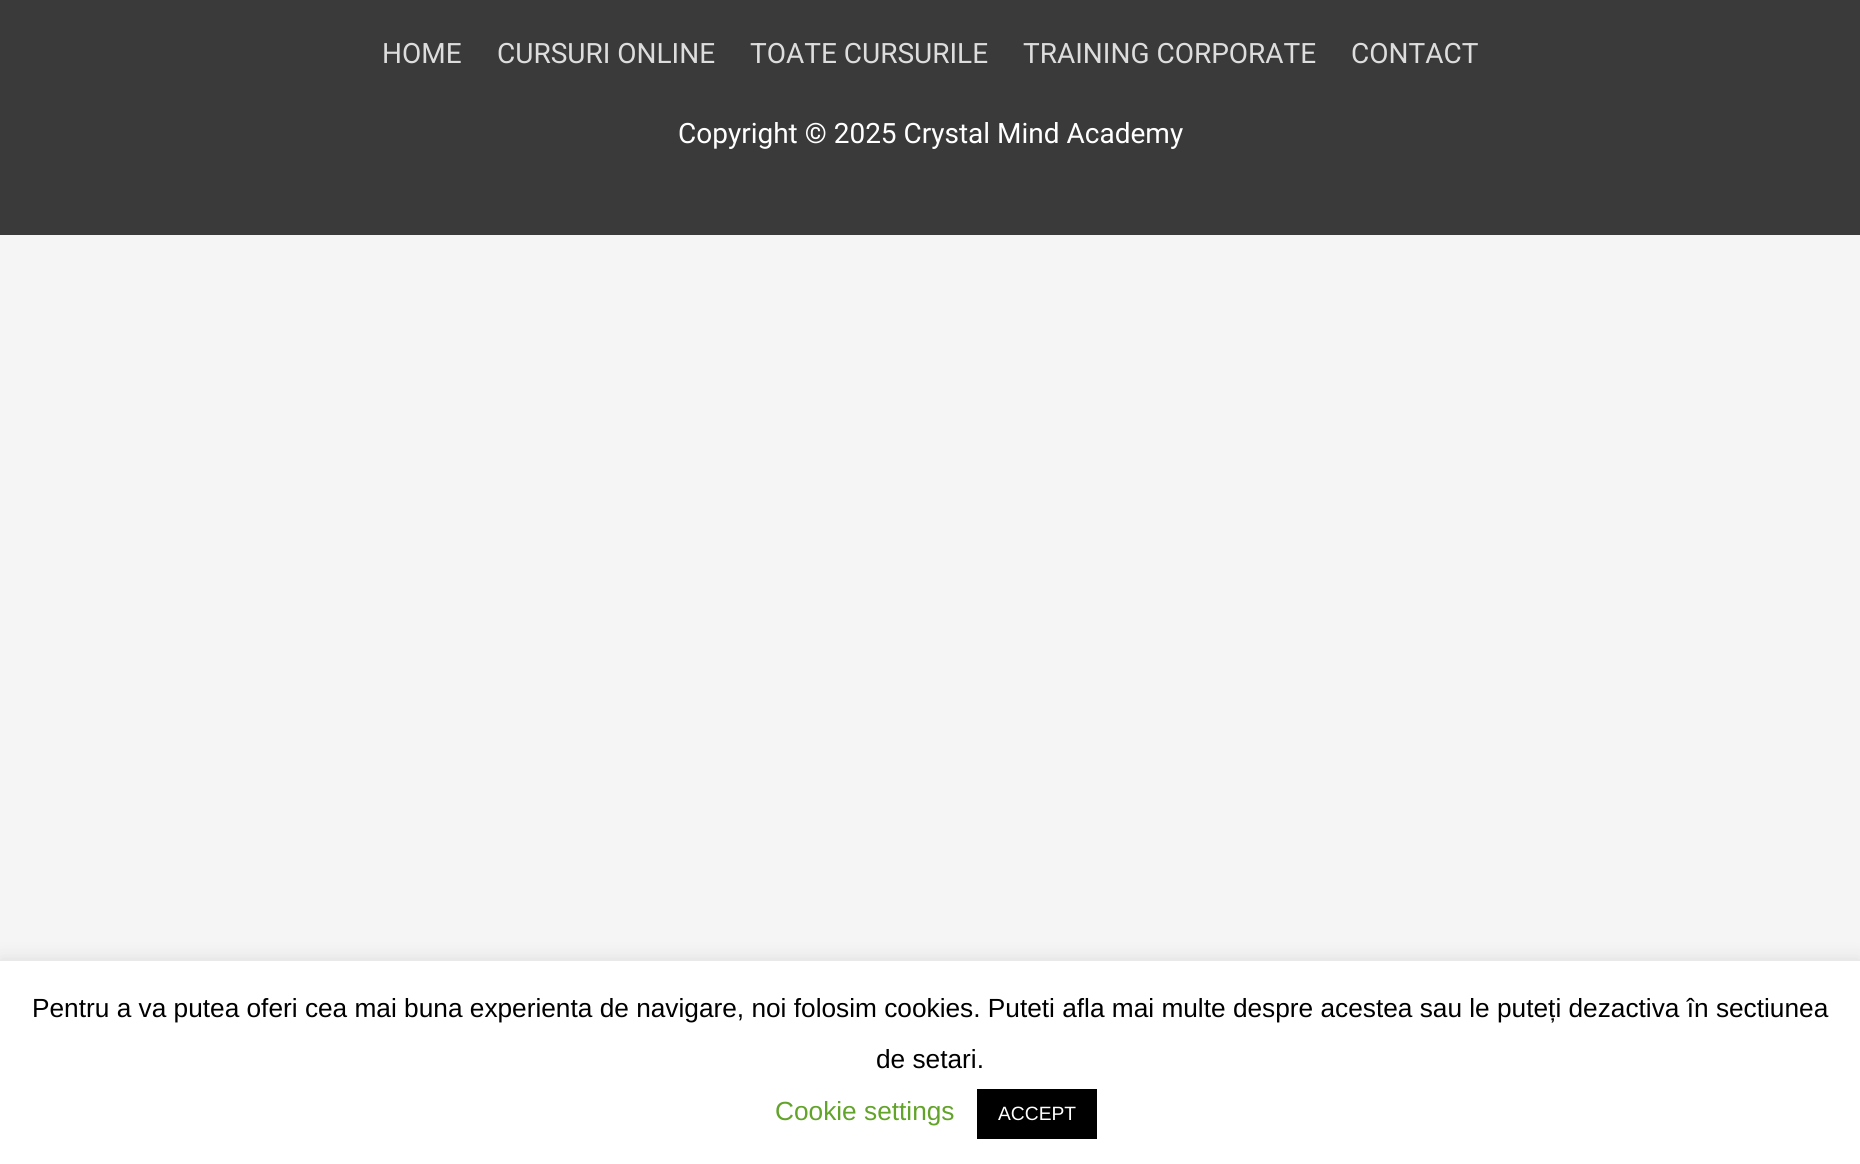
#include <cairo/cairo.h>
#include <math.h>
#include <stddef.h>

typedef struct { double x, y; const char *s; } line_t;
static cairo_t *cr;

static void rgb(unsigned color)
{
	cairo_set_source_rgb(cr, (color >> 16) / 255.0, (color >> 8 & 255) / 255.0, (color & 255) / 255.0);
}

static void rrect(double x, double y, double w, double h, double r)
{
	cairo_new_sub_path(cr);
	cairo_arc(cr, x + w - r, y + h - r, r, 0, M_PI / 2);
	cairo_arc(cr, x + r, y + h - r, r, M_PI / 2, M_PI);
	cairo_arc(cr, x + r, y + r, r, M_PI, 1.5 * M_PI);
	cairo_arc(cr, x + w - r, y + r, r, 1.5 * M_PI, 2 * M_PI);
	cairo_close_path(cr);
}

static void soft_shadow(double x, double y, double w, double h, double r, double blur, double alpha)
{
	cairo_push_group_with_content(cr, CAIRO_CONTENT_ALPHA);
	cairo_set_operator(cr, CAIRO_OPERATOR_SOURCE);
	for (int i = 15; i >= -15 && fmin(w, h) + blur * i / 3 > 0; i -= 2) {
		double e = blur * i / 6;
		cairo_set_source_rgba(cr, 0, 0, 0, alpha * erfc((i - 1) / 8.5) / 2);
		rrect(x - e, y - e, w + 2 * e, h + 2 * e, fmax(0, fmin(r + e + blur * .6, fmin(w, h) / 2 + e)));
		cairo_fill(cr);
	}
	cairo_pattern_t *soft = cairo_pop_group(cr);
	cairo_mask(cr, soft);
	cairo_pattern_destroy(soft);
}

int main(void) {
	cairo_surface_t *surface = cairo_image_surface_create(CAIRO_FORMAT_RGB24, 1860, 1164);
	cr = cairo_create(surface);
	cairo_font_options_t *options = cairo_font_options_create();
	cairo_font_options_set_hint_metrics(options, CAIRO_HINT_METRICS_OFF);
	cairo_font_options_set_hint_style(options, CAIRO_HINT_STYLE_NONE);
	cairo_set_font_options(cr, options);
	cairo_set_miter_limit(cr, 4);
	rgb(0xf5f5f5);
	cairo_paint(cr);
	rgb(0x3a3a3a);
	cairo_rectangle(cr, 0, 0, 1860, 235);
	cairo_fill(cr);
	rgb(0xacabab);
	soft_shadow(0, 959, 1860, 205, 0, 9, 0.3);
	rgb(0xffffff);
	cairo_rectangle(cr, 0, 961, 1860, 203);
	cairo_fill(cr);
	rgb(0x000000);
	cairo_rectangle(cr, 977, 1089, 120, 50);
	cairo_fill(cr);
	cairo_select_font_face(cr, "Roboto", CAIRO_FONT_SLANT_NORMAL, CAIRO_FONT_WEIGHT_NORMAL);
	cairo_set_font_size(cr, 28);
	rgb(0xdddddd);
	{
		static const line_t items[] = {
			{382, 63, "HOME"},
			{497, 63, "CURSURI ONLINE"},
			{750, 63, "TOATE CURSURILE"},
			{1023, 63, "TRAINING CORPORATE"},
			{1351, 63, "CONTACT"},
		};
		for (size_t i = 0; i < sizeof items / sizeof *items; i++) {
			cairo_move_to(cr, items[i].x, items[i].y);
			cairo_show_text(cr, items[i].s);
		}
	}
	rgb(0xffffff);
	cairo_move_to(cr, 678, 143);
	cairo_show_text(cr, "Copyright © 2025 Crystal Mind Academy");
	cairo_select_font_face(cr, "Liberation Sans", CAIRO_FONT_SLANT_NORMAL, CAIRO_FONT_WEIGHT_NORMAL);
	cairo_set_font_size(cr, 26.25);
	rgb(0x000000);
	cairo_move_to(cr, 32, 1017);
	cairo_show_text(cr, "Pentru a va putea oferi cea mai buna experienta de navigare, noi folosim cookies. Puteti afla mai multe despre acestea sau le puteți dezactiva în sectiunea");
	cairo_move_to(cr, 876, 1068);
	cairo_show_text(cr, "de setari.");
	rgb(0x62a329);
	cairo_move_to(cr, 775, 1120);
	cairo_show_text(cr, "Cookie settings");
	cairo_set_font_size(cr, 19.25);
	rgb(0xffffff);
	cairo_move_to(cr, 998, 1120);
	cairo_show_text(cr, "ACCEPT");
	cairo_surface_write_to_png(surface, "page.png");
	cairo_font_options_destroy(options);
	cairo_destroy(cr);
	cairo_surface_destroy(surface);
	return 0;
}
